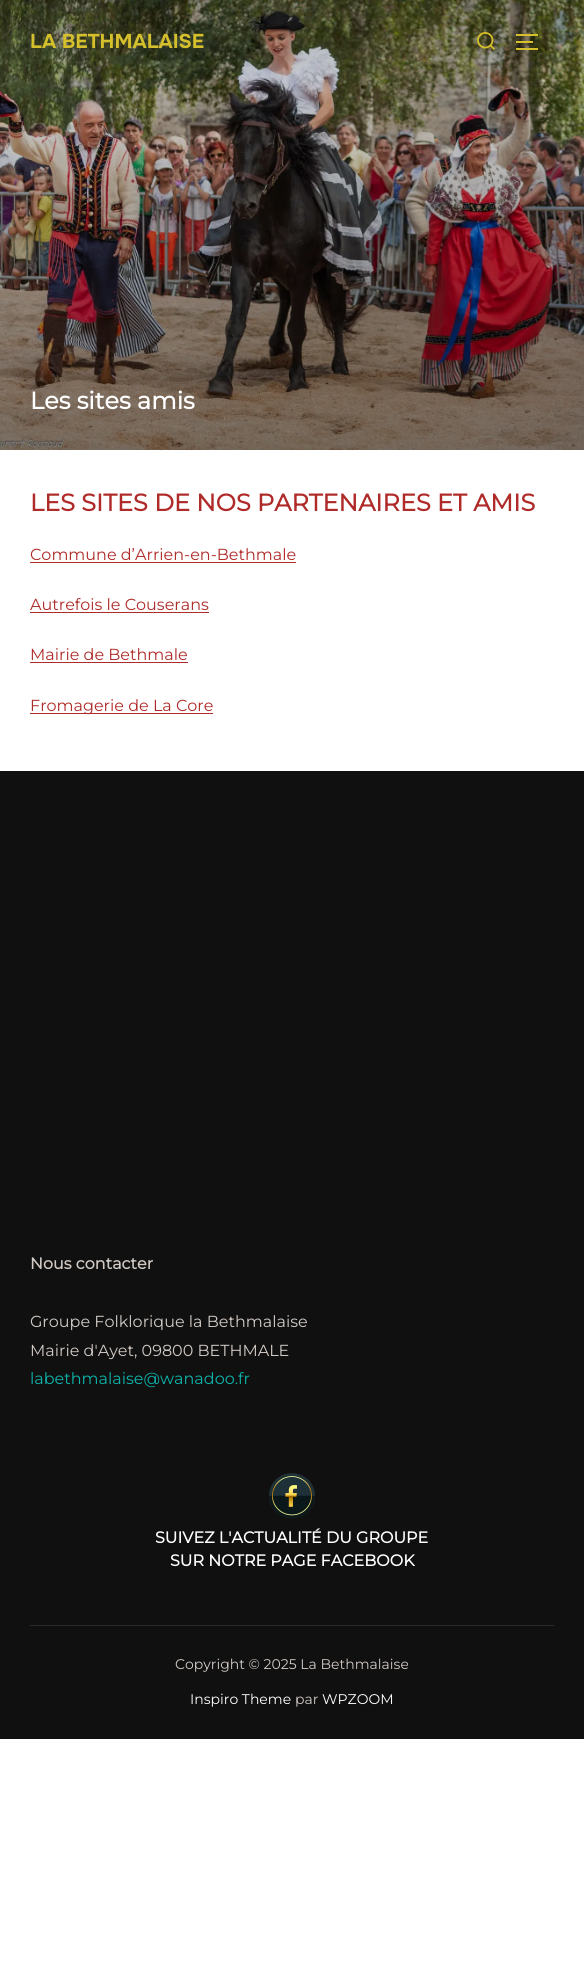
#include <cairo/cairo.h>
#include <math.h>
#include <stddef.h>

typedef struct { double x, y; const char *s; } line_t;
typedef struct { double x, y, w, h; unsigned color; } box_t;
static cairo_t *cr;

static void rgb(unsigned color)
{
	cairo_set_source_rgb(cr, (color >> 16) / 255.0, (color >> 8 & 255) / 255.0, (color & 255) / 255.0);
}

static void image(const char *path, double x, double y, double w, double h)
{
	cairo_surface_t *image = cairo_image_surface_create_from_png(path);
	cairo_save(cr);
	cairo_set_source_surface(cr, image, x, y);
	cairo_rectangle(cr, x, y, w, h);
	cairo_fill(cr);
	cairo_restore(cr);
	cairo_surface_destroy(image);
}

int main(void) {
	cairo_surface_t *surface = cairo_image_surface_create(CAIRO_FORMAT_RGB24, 584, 1976);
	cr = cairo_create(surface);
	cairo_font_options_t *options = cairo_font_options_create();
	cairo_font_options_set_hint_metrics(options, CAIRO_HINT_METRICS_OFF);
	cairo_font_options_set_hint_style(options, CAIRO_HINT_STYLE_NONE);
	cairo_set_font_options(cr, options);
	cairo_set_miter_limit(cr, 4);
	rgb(0xffffff);
	cairo_paint(cr);
	image("img/2.png", 0, 0, 584, 450);
	image("img/1.png", 477, 32, 18, 18);
	{
		static const box_t items[] = {
			{516, 34, 22, 2, 0xd6bf2c},
			{516, 41, 17, 2, 0xd6bf2c},
			{516, 48, 22, 2, 0xd6bf2c},
			{30, 562, 266, 1, 0xaf2b29},
			{30, 612, 179, 1, 0xaf2b29},
			{30, 662, 158, 1, 0xaf2b29},
			{30, 713, 183, 1, 0xaf2b29},
			{0, 771, 584, 968, 0x101010},
		};
		for (size_t i = 0; i < sizeof items / sizeof *items; i++) {
			rgb(items[i].color);
			cairo_rectangle(cr, items[i].x, items[i].y, items[i].w, items[i].h);
			cairo_fill(cr);
		}
	}
	image("img/3.png", 269, 1473, 46, 46);
	rgb(0x282828);
	cairo_rectangle(cr, 30, 1625, 524, 1);
	cairo_fill(cr);
	cairo_select_font_face(cr, "Onest", CAIRO_FONT_SLANT_NORMAL, CAIRO_FONT_WEIGHT_BOLD);
	cairo_set_font_size(cr, 20);
	rgb(0xd6bf2c);
	cairo_move_to(cr, 30, 48);
	cairo_show_text(cr, "LA BETHMALAISE");
	cairo_select_font_face(cr, "Montserrat", CAIRO_FONT_SLANT_NORMAL, CAIRO_FONT_WEIGHT_BOLD);
	cairo_set_font_size(cr, 24);
	rgb(0xffffff);
	cairo_move_to(cr, 30, 409);
	cairo_show_text(cr, "Les sites amis");
	rgb(0xaf2b29);
	cairo_move_to(cr, 30, 511);
	cairo_show_text(cr, "LES SITES DE NOS PARTENAIRES ET AMIS");
	cairo_select_font_face(cr, "Montserrat Thin", CAIRO_FONT_SLANT_NORMAL, CAIRO_FONT_WEIGHT_NORMAL);
	cairo_set_font_size(cr, 16);
	{
		static const line_t items[] = {
			{30, 560, "Commune d’Arrien-en-Bethmale"},
			{30, 610, "Autrefois le Couserans"},
			{30, 660, "Mairie de Bethmale"},
			{30, 711, "Fromagerie de La Core"},
		};
		for (size_t i = 0; i < sizeof items / sizeof *items; i++) {
			cairo_move_to(cr, items[i].x, items[i].y);
			cairo_show_text(cr, items[i].s);
		}
	}
	cairo_select_font_face(cr, "Montserrat", CAIRO_FONT_SLANT_NORMAL, CAIRO_FONT_WEIGHT_BOLD);
	rgb(0xd1c9c4);
	cairo_move_to(cr, 30, 1269);
	cairo_show_text(cr, "Nous contacter");
	cairo_select_font_face(cr, "Montserrat Thin", CAIRO_FONT_SLANT_NORMAL, CAIRO_FONT_WEIGHT_NORMAL);
	cairo_move_to(cr, 30, 1327);
	cairo_show_text(cr, "Groupe Folklorique la Bethmalaise");
	cairo_move_to(cr, 30, 1356);
	cairo_show_text(cr, "Mairie d'Ayet, 09800 BETHMALE");
	rgb(0x0bb4aa);
	cairo_move_to(cr, 30, 1384);
	cairo_show_text(cr, "labethmalaise@wanadoo.fr");
	cairo_select_font_face(cr, "Montserrat", CAIRO_FONT_SLANT_NORMAL, CAIRO_FONT_WEIGHT_BOLD);
	rgb(0xffffff);
	cairo_move_to(cr, 155, 1543);
	cairo_show_text(cr, "SUIVEZ L'ACTUALITÉ DU GROUPE");
	cairo_move_to(cr, 170, 1566);
	cairo_show_text(cr, "SUR NOTRE PAGE FACEBOOK");
	cairo_select_font_face(cr, "Montserrat Thin", CAIRO_FONT_SLANT_NORMAL, CAIRO_FONT_WEIGHT_NORMAL);
	cairo_set_font_size(cr, 14);
	rgb(0xd1c9c4);
	cairo_move_to(cr, 175, 1669);
	cairo_show_text(cr, "Copyright © 2025 La Bethmalaise");
	rgb(0xffffff);
	cairo_move_to(cr, 190, 1704);
	cairo_show_text(cr, "Inspiro Theme");
	rgb(0xd1c9c4);
	cairo_move_to(cr, 295, 1704);
	cairo_show_text(cr, "par");
	rgb(0xffffff);
	cairo_move_to(cr, 322, 1704);
	cairo_show_text(cr, "WPZOOM");
	cairo_surface_write_to_png(surface, "page.png");
	cairo_font_options_destroy(options);
	cairo_destroy(cr);
	cairo_surface_destroy(surface);
	return 0;
}
